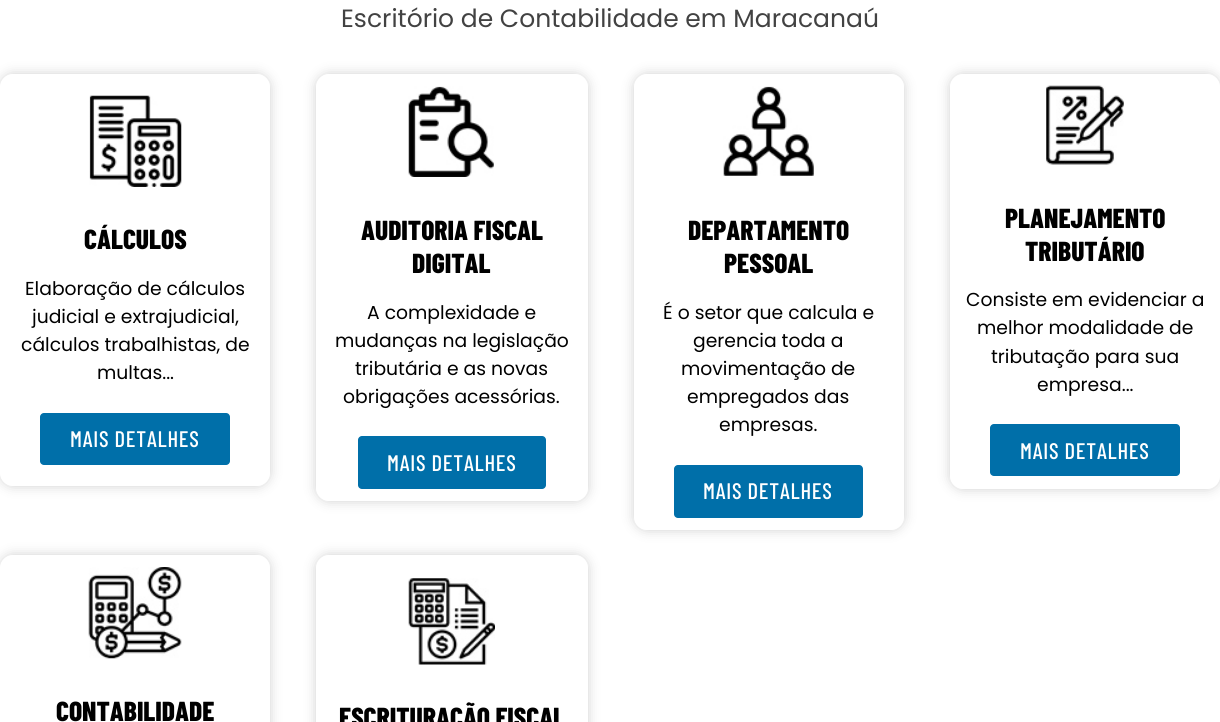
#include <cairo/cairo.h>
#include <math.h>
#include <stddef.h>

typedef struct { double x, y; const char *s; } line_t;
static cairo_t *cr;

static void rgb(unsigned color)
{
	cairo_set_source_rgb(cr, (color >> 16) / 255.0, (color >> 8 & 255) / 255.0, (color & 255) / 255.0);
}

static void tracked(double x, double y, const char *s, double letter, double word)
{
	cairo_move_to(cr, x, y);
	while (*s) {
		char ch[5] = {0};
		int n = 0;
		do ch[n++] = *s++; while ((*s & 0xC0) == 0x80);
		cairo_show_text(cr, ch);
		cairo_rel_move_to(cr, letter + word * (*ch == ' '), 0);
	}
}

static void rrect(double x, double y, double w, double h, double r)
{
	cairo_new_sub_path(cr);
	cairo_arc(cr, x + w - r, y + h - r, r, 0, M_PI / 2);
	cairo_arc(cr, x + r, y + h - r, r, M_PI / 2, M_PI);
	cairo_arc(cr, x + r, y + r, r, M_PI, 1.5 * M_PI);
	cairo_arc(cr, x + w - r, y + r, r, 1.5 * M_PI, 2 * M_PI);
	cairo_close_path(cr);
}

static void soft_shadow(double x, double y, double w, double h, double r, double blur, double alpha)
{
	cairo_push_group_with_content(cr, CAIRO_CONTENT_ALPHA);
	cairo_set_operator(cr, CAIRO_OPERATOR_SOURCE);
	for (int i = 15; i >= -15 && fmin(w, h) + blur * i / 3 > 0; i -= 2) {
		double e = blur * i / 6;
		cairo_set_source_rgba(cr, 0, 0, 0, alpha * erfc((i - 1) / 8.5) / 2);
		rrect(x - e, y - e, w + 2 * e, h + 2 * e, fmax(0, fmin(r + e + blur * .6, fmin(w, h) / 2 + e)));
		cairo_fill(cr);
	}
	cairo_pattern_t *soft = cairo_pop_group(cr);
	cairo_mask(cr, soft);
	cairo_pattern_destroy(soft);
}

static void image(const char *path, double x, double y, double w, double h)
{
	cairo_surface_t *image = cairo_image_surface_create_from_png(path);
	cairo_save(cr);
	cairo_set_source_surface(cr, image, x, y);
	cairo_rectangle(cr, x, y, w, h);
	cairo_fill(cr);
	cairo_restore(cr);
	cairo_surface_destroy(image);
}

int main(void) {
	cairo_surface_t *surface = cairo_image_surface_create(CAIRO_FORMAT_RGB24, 1220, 722);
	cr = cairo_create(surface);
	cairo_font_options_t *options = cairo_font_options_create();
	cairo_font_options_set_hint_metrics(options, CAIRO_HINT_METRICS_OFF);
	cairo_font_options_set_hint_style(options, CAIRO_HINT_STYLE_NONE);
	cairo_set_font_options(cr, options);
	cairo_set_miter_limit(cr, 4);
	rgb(0xffffff);
	cairo_paint(cr);
	cairo_save(cr);
	cairo_set_fill_rule(cr, CAIRO_FILL_RULE_EVEN_ODD);
	cairo_new_path(cr);
	cairo_move_to(cr, 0, 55);
	cairo_line_to(cr, 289, 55);
	cairo_line_to(cr, 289, 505);
	cairo_line_to(cr, 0, 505);
	cairo_close_path(cr);
	cairo_move_to(cr, 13, 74);
	cairo_line_to(cr, 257, 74);
	cairo_curve_to(cr, 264, 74, 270, 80, 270, 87);
	cairo_line_to(cr, 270, 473);
	cairo_curve_to(cr, 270, 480, 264, 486, 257, 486);
	cairo_line_to(cr, 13, 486);
	cairo_curve_to(cr, 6, 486, 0, 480, 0, 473);
	cairo_line_to(cr, 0, 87);
	cairo_curve_to(cr, 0, 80, 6, 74, 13, 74);
	cairo_close_path(cr);
	cairo_clip(cr);
	rgb(0x000000);
	soft_shadow(0, 74, 270, 412, 13, 6, 0.18);
	cairo_restore(cr);
	image("img/1.png", 89, 95, 93, 92);
	rgb(0x006fa9);
	rrect(40, 413, 190, 52, 4);
	cairo_fill(cr);
	cairo_save(cr);
	cairo_set_fill_rule(cr, CAIRO_FILL_RULE_EVEN_ODD);
	cairo_new_path(cr);
	cairo_move_to(cr, 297, 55);
	cairo_line_to(cr, 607, 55);
	cairo_line_to(cr, 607, 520);
	cairo_line_to(cr, 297, 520);
	cairo_close_path(cr);
	cairo_move_to(cr, 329, 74);
	cairo_line_to(cr, 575, 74);
	cairo_curve_to(cr, 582, 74, 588, 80, 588, 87);
	cairo_line_to(cr, 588, 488);
	cairo_curve_to(cr, 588, 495, 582, 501, 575, 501);
	cairo_line_to(cr, 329, 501);
	cairo_curve_to(cr, 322, 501, 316, 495, 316, 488);
	cairo_line_to(cr, 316, 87);
	cairo_curve_to(cr, 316, 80, 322, 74, 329, 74);
	cairo_close_path(cr);
	cairo_clip(cr);
	rgb(0x000000);
	soft_shadow(316, 74, 272, 427, 13, 6, 0.18);
	cairo_restore(cr);
	image("img/2.png", 408, 86, 86, 91);
	rrect(358, 436, 188, 53, 4);
	cairo_fill(cr);
	cairo_save(cr);
	cairo_set_fill_rule(cr, CAIRO_FILL_RULE_EVEN_ODD);
	cairo_new_path(cr);
	cairo_move_to(cr, 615, 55);
	cairo_line_to(cr, 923, 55);
	cairo_line_to(cr, 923, 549);
	cairo_line_to(cr, 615, 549);
	cairo_close_path(cr);
	cairo_move_to(cr, 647, 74);
	cairo_line_to(cr, 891, 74);
	cairo_curve_to(cr, 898, 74, 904, 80, 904, 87);
	cairo_line_to(cr, 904, 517);
	cairo_curve_to(cr, 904, 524, 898, 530, 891, 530);
	cairo_line_to(cr, 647, 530);
	cairo_curve_to(cr, 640, 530, 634, 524, 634, 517);
	cairo_line_to(cr, 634, 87);
	cairo_curve_to(cr, 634, 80, 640, 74, 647, 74);
	cairo_close_path(cr);
	cairo_clip(cr);
	rgb(0x000000);
	soft_shadow(634, 74, 270, 456, 13, 6, 0.18);
	cairo_restore(cr);
	image("img/3.png", 723, 86, 91, 90);
	rrect(674, 465, 189, 53, 4);
	cairo_fill(cr);
	cairo_save(cr);
	cairo_set_fill_rule(cr, CAIRO_FILL_RULE_EVEN_ODD);
	cairo_new_path(cr);
	cairo_move_to(cr, 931, 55);
	cairo_line_to(cr, 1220, 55);
	cairo_line_to(cr, 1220, 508);
	cairo_line_to(cr, 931, 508);
	cairo_close_path(cr);
	cairo_move_to(cr, 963, 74);
	cairo_line_to(cr, 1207, 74);
	cairo_curve_to(cr, 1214, 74, 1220, 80, 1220, 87);
	cairo_line_to(cr, 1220, 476);
	cairo_curve_to(cr, 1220, 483, 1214, 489, 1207, 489);
	cairo_line_to(cr, 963, 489);
	cairo_curve_to(cr, 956, 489, 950, 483, 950, 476);
	cairo_line_to(cr, 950, 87);
	cairo_curve_to(cr, 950, 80, 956, 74, 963, 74);
	cairo_close_path(cr);
	cairo_clip(cr);
	rgb(0x000000);
	soft_shadow(950, 74, 270, 415, 13, 6, 0.18);
	cairo_restore(cr);
	image("img/4.png", 1046, 85, 78, 80);
	rrect(990, 424, 190, 52, 4);
	cairo_fill(cr);
	cairo_save(cr);
	cairo_set_fill_rule(cr, CAIRO_FILL_RULE_EVEN_ODD);
	cairo_new_path(cr);
	cairo_move_to(cr, 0, 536);
	cairo_line_to(cr, 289, 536);
	cairo_line_to(cr, 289, 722);
	cairo_line_to(cr, 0, 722);
	cairo_close_path(cr);
	cairo_move_to(cr, 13, 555);
	cairo_line_to(cr, 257, 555);
	cairo_curve_to(cr, 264, 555, 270, 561, 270, 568);
	cairo_line_to(cr, 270, 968);
	cairo_curve_to(cr, 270, 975, 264, 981, 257, 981);
	cairo_line_to(cr, 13, 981);
	cairo_curve_to(cr, 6, 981, 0, 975, 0, 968);
	cairo_line_to(cr, 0, 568);
	cairo_curve_to(cr, 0, 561, 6, 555, 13, 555);
	cairo_close_path(cr);
	cairo_clip(cr);
	rgb(0x000000);
	soft_shadow(0, 555, 270, 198, 13, 6, 0.18);
	cairo_restore(cr);
	image("img/5.png", 88, 567, 94, 92);
	cairo_save(cr);
	cairo_set_fill_rule(cr, CAIRO_FILL_RULE_EVEN_ODD);
	cairo_new_path(cr);
	cairo_move_to(cr, 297, 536);
	cairo_line_to(cr, 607, 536);
	cairo_line_to(cr, 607, 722);
	cairo_line_to(cr, 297, 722);
	cairo_close_path(cr);
	cairo_move_to(cr, 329, 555);
	cairo_line_to(cr, 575, 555);
	cairo_curve_to(cr, 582, 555, 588, 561, 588, 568);
	cairo_line_to(cr, 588, 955);
	cairo_curve_to(cr, 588, 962, 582, 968, 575, 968);
	cairo_line_to(cr, 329, 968);
	cairo_curve_to(cr, 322, 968, 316, 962, 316, 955);
	cairo_line_to(cr, 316, 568);
	cairo_curve_to(cr, 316, 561, 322, 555, 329, 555);
	cairo_close_path(cr);
	cairo_clip(cr);
	rgb(0x000000);
	soft_shadow(316, 555, 272, 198, 13, 6, 0.18);
	cairo_restore(cr);
	image("img/6.png", 408, 578, 87, 87);
	cairo_select_font_face(cr, "Poppins", CAIRO_FONT_SLANT_NORMAL, CAIRO_FONT_WEIGHT_NORMAL);
	cairo_set_font_size(cr, 25);
	rgb(0x424242);
	cairo_move_to(cr, 341, 27);
	cairo_show_text(cr, "Escritório de Contabilidade em Maracanaú");
	cairo_select_font_face(cr, "Barlow Condensed ExtraBold", CAIRO_FONT_SLANT_NORMAL, CAIRO_FONT_WEIGHT_NORMAL);
	cairo_set_font_size(cr, 27.5);
	rgb(0x000000);
	cairo_move_to(cr, 84, 249);
	cairo_show_text(cr, "CÁLCULOS");
	cairo_select_font_face(cr, "Poppins", CAIRO_FONT_SLANT_NORMAL, CAIRO_FONT_WEIGHT_NORMAL);
	cairo_set_font_size(cr, 18.75);
	{
		static const line_t items[] = {
			{25, 295, "Elaboração de cálculos"},
			{32, 323, "judicial e extrajudicial,"},
			{21, 351, "cálculos trabalhistas, de"},
			{97, 379, "multas..."},
		};
		for (size_t i = 0; i < sizeof items / sizeof *items; i++) {
			cairo_move_to(cr, items[i].x, items[i].y);
			cairo_show_text(cr, items[i].s);
		}
	}
	cairo_select_font_face(cr, "Barlow Condensed Medium", CAIRO_FONT_SLANT_NORMAL, CAIRO_FONT_WEIGHT_NORMAL);
	cairo_set_font_size(cr, 22.5);
	rgb(0xffffff);
	tracked(70, 447, "MAIS DETALHES", 0.75, 0);
	cairo_select_font_face(cr, "Barlow Condensed ExtraBold", CAIRO_FONT_SLANT_NORMAL, CAIRO_FONT_WEIGHT_NORMAL);
	cairo_set_font_size(cr, 27.5);
	rgb(0x000000);
	cairo_move_to(cr, 361, 240);
	cairo_show_text(cr, "AUDITORIA FISCAL");
	cairo_move_to(cr, 412, 273);
	cairo_show_text(cr, "DIGITAL");
	cairo_select_font_face(cr, "Poppins", CAIRO_FONT_SLANT_NORMAL, CAIRO_FONT_WEIGHT_NORMAL);
	cairo_set_font_size(cr, 18.75);
	{
		static const line_t items[] = {
			{367, 319, "A complexidade e"},
			{335, 347, "mudanças na legislação"},
			{355, 375, "tributária e as novas"},
			{343, 403, "obrigações acessórias."},
		};
		for (size_t i = 0; i < sizeof items / sizeof *items; i++) {
			cairo_move_to(cr, items[i].x, items[i].y);
			cairo_show_text(cr, items[i].s);
		}
	}
	cairo_select_font_face(cr, "Barlow Condensed Medium", CAIRO_FONT_SLANT_NORMAL, CAIRO_FONT_WEIGHT_NORMAL);
	cairo_set_font_size(cr, 22.5);
	rgb(0xffffff);
	tracked(387, 471, "MAIS DETALHES", 0.75, 0);
	cairo_select_font_face(cr, "Barlow Condensed ExtraBold", CAIRO_FONT_SLANT_NORMAL, CAIRO_FONT_WEIGHT_NORMAL);
	cairo_set_font_size(cr, 27.5);
	rgb(0x000000);
	cairo_move_to(cr, 688, 240);
	cairo_show_text(cr, "DEPARTAMENTO");
	cairo_move_to(cr, 724, 273);
	cairo_show_text(cr, "PESSOAL");
	cairo_select_font_face(cr, "Poppins", CAIRO_FONT_SLANT_NORMAL, CAIRO_FONT_WEIGHT_NORMAL);
	cairo_set_font_size(cr, 18.75);
	{
		static const line_t items[] = {
			{663, 319, "É o setor que calcula e"},
			{693, 347, "gerencia toda a"},
			{681, 375, "movimentação de"},
			{687, 403, "empregados das"},
			{719, 431, "empresas."},
		};
		for (size_t i = 0; i < sizeof items / sizeof *items; i++) {
			cairo_move_to(cr, items[i].x, items[i].y);
			cairo_show_text(cr, items[i].s);
		}
	}
	cairo_select_font_face(cr, "Barlow Condensed Medium", CAIRO_FONT_SLANT_NORMAL, CAIRO_FONT_WEIGHT_NORMAL);
	cairo_set_font_size(cr, 22.5);
	rgb(0xffffff);
	tracked(703, 499, "MAIS DETALHES", 0.75, 0);
	cairo_select_font_face(cr, "Barlow Condensed ExtraBold", CAIRO_FONT_SLANT_NORMAL, CAIRO_FONT_WEIGHT_NORMAL);
	cairo_set_font_size(cr, 27.5);
	rgb(0x000000);
	cairo_move_to(cr, 1005, 228);
	cairo_show_text(cr, "PLANEJAMENTO");
	cairo_move_to(cr, 1025, 261);
	cairo_show_text(cr, "TRIBUTÁRIO");
	cairo_select_font_face(cr, "Poppins", CAIRO_FONT_SLANT_NORMAL, CAIRO_FONT_WEIGHT_NORMAL);
	cairo_set_font_size(cr, 18.75);
	{
		static const line_t items[] = {
			{966, 306, "Consiste em evidenciar a"},
			{977, 334, "melhor modalidade de"},
			{991, 363, "tributação para sua"},
			{1037, 391, "empresa..."},
		};
		for (size_t i = 0; i < sizeof items / sizeof *items; i++) {
			cairo_move_to(cr, items[i].x, items[i].y);
			cairo_show_text(cr, items[i].s);
		}
	}
	cairo_select_font_face(cr, "Barlow Condensed Medium", CAIRO_FONT_SLANT_NORMAL, CAIRO_FONT_WEIGHT_NORMAL);
	cairo_set_font_size(cr, 22.5);
	rgb(0xffffff);
	tracked(1020, 459, "MAIS DETALHES", 0.75, 0);
	cairo_select_font_face(cr, "Barlow Condensed ExtraBold", CAIRO_FONT_SLANT_NORMAL, CAIRO_FONT_WEIGHT_NORMAL);
	cairo_set_font_size(cr, 27.5);
	rgb(0x000000);
	cairo_move_to(cr, 56, 721);
	cairo_show_text(cr, "CONTABILIDADE");
	cairo_move_to(cr, 339, 727);
	cairo_show_text(cr, "ESCRITURAÇÃO FISCAL");
	cairo_surface_write_to_png(surface, "page.png");
	cairo_font_options_destroy(options);
	cairo_destroy(cr);
	cairo_surface_destroy(surface);
	return 0;
}
